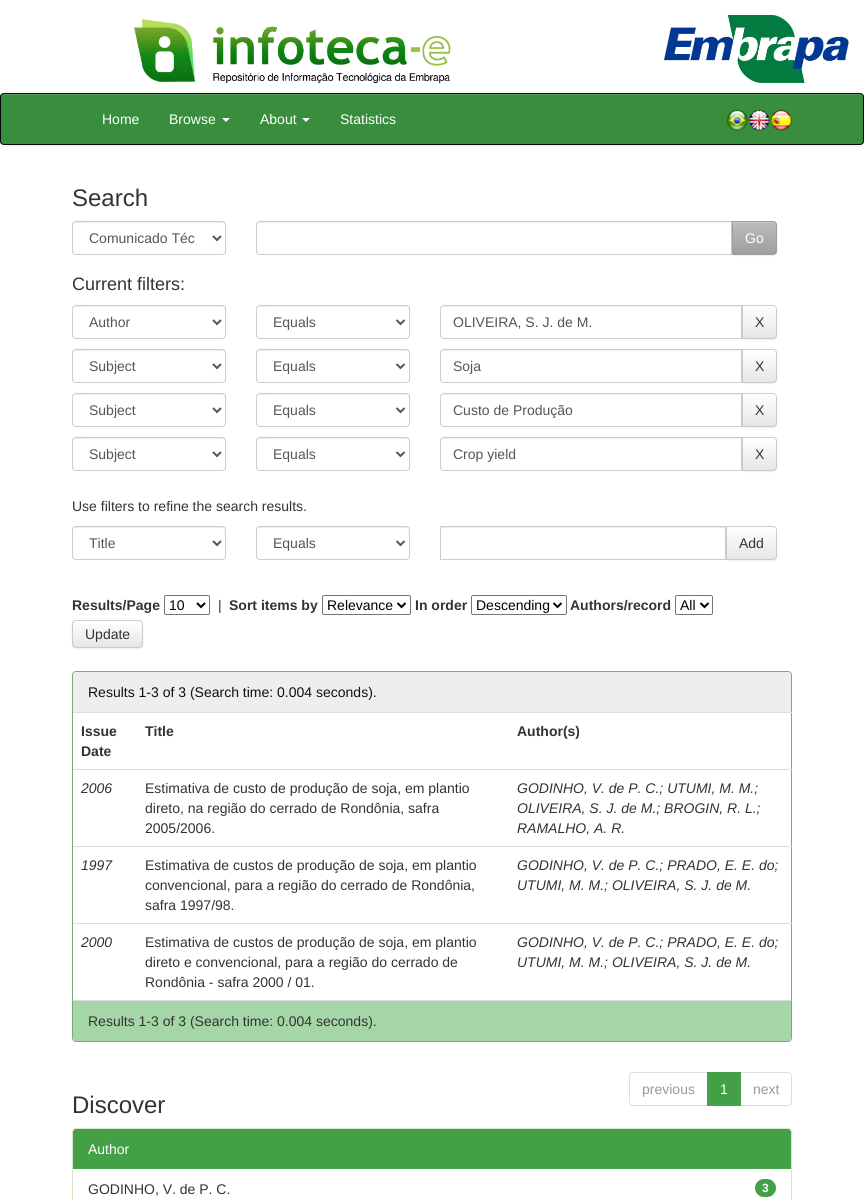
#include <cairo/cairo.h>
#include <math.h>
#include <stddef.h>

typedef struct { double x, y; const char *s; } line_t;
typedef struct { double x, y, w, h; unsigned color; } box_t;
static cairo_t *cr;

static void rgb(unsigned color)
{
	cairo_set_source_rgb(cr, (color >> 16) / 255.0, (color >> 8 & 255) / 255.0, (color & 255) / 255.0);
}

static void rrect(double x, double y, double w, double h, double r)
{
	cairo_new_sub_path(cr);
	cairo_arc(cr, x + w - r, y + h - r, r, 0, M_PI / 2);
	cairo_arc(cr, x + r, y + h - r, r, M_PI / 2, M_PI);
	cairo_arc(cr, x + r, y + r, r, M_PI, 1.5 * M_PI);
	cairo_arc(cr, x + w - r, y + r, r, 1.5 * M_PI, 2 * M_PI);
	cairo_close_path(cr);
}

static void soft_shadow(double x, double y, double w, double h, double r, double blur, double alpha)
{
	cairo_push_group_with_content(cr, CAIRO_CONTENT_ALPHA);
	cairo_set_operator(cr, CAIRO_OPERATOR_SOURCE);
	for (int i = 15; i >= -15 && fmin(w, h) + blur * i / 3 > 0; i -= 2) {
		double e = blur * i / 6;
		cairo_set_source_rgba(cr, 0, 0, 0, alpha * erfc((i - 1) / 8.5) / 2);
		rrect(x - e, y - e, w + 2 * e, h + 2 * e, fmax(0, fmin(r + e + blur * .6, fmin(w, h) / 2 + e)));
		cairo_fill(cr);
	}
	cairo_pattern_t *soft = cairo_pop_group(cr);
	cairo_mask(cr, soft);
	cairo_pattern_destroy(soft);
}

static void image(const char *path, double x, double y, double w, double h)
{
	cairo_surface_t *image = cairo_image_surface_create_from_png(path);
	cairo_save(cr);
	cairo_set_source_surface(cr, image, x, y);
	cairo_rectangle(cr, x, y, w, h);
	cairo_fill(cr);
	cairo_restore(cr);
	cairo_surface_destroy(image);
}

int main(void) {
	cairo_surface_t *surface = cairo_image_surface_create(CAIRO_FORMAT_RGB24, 864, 1200);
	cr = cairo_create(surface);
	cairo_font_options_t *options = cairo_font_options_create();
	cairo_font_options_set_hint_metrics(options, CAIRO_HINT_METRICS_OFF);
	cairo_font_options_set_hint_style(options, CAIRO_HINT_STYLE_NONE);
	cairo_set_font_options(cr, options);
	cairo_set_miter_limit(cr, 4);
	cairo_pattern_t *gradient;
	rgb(0xffffff);
	cairo_paint(cr);
	image("img/1.png", 134, 19, 317, 65);
	image("img/2.png", 664, 15, 185, 68);
	rgb(0x000000);
	soft_shadow(0, 94, 864, 52, 4, 2.5, 0.07);
	cairo_save(cr);
	rrect(0, 93, 864, 52, 4);
	cairo_clip(cr);
	rgb(0x388e3c);
	cairo_rectangle(cr, 0, 94, 864, 50);
	cairo_fill(cr);
	cairo_restore(cr);
	rgb(0x569f59);
	cairo_new_path(cr);
	cairo_move_to(cr, 4, 95);
	cairo_line_to(cr, 860, 95);
	cairo_curve_to(cr, 862, 95, 863, 96, 863, 98);
	cairo_curve_to(cr, 863, 96, 862, 94, 860, 94);
	cairo_line_to(cr, 4, 94);
	cairo_curve_to(cr, 2, 94, 1, 96, 1, 98);
	cairo_curve_to(cr, 1, 96, 2, 95, 4, 95);
	cairo_close_path(cr);
	cairo_fill(cr);
	rrect(0.5, 93.5, 863, 51, 3.5);
	rgb(0x080808);
	cairo_set_line_width(cr, 1);
	cairo_stroke(cr);
	rgb(0xffffff);
	cairo_new_path(cr);
	cairo_move_to(cr, 222, 118);
	cairo_line_to(cr, 230, 118);
	cairo_line_to(cr, 226, 122);
	cairo_close_path(cr);
	cairo_fill(cr);
	cairo_new_path(cr);
	cairo_move_to(cr, 302, 118);
	cairo_line_to(cr, 310, 118);
	cairo_line_to(cr, 306, 122);
	cairo_close_path(cr);
	cairo_fill(cr);
	image("img/3.png", 726, 109, 22, 22);
	image("img/4.png", 748, 109, 22, 22);
	image("img/5.png", 770, 109, 22, 22);
	rgb(0xececec);
	cairo_new_path(cr);
	cairo_move_to(cr, 76, 223);
	cairo_line_to(cr, 222, 223);
	cairo_curve_to(cr, 224, 223, 225, 224, 225, 226);
	cairo_curve_to(cr, 225, 224, 225, 223, 223, 222);
	cairo_line_to(cr, 100, 222);
	cairo_curve_to(cr, 93, 222, 73, 217, 73, 226);
	cairo_curve_to(cr, 73, 224, 74, 223, 76, 223);
	cairo_close_path(cr);
	cairo_fill(cr);
	rrect(72.5, 221.5, 153, 33, 3.5);
	rgb(0xcccccc);
	cairo_stroke(cr);
	cairo_new_path(cr);
	cairo_move_to(cr, 213, 236);
	cairo_line_to(cr, 217, 240);
	cairo_line_to(cr, 221, 236);
	rgb(0x555555);
	cairo_set_line_width(cr, 2);
	cairo_stroke(cr);
	rgb(0xececec);
	cairo_new_path(cr);
	cairo_move_to(cr, 260, 223);
	cairo_line_to(cr, 731, 223);
	cairo_line_to(cr, 731, 222);
	cairo_line_to(cr, 260, 222);
	cairo_curve_to(cr, 258, 222, 257, 224, 257, 226);
	cairo_curve_to(cr, 257, 224, 258, 223, 260, 223);
	cairo_close_path(cr);
	cairo_fill(cr);
	cairo_new_path(cr);
	cairo_move_to(cr, 260, 221.5);
	cairo_line_to(cr, 731.5, 221.5);
	cairo_line_to(cr, 731.5, 254.5);
	cairo_line_to(cr, 260, 254.5);
	cairo_curve_to(cr, 258, 254.5, 256.5, 253, 256.5, 251);
	cairo_line_to(cr, 256.5, 225);
	cairo_curve_to(cr, 256.5, 223, 258, 221.5, 260, 221.5);
	cairo_close_path(cr);
	rgb(0xcccccc);
	cairo_set_line_width(cr, 1);
	cairo_stroke(cr);
	rgb(0x000000);
	soft_shadow(732, 222, 45, 34, 4, 0.5, 0.07);
	cairo_save(cr);
	cairo_new_path(cr);
	cairo_move_to(cr, 732, 221);
	cairo_line_to(cr, 773, 221);
	cairo_curve_to(cr, 775, 221, 777, 223, 777, 225);
	cairo_line_to(cr, 777, 251);
	cairo_curve_to(cr, 777, 253, 775, 255, 773, 255);
	cairo_line_to(cr, 732, 255);
	cairo_close_path(cr);
	cairo_clip(cr);
	gradient = cairo_pattern_create_linear(755, 222, 755, 254);
	cairo_pattern_add_color_stop_rgba(gradient, 0, 0.741, 0.741, 0.741, 1);
	cairo_pattern_add_color_stop_rgba(gradient, 1, 0.62, 0.62, 0.62, 1);
	cairo_set_source(cr, gradient);
	cairo_pattern_destroy(gradient);
	cairo_rectangle(cr, 733, 222, 44, 32);
	cairo_fill(cr);
	cairo_restore(cr);
	rgb(0xc7c7c7);
	cairo_new_path(cr);
	cairo_move_to(cr, 733, 223);
	cairo_line_to(cr, 773, 223);
	cairo_curve_to(cr, 775, 223, 776, 224, 776, 226);
	cairo_line_to(cr, 776, 225);
	cairo_curve_to(cr, 776, 223, 775, 222, 773, 222);
	cairo_line_to(cr, 733, 222);
	cairo_close_path(cr);
	cairo_fill(cr);
	cairo_new_path(cr);
	cairo_move_to(cr, 732.5, 221.5);
	cairo_line_to(cr, 773, 221.5);
	cairo_curve_to(cr, 775, 221.5, 776.5, 223, 776.5, 225);
	cairo_line_to(cr, 776.5, 251);
	cairo_curve_to(cr, 776.5, 253, 775, 254.5, 773, 254.5);
	cairo_line_to(cr, 732.5, 254.5);
	cairo_close_path(cr);
	rgb(0x9e9e9e);
	cairo_stroke(cr);
	rgb(0xececec);
	cairo_new_path(cr);
	cairo_move_to(cr, 76, 307);
	cairo_line_to(cr, 222, 307);
	cairo_curve_to(cr, 224, 307, 225, 308, 225, 310);
	cairo_curve_to(cr, 225, 308, 225, 307, 223, 306);
	cairo_line_to(cr, 100, 306);
	cairo_curve_to(cr, 93, 306, 73, 301, 73, 310);
	cairo_curve_to(cr, 73, 308, 74, 307, 76, 307);
	cairo_close_path(cr);
	cairo_fill(cr);
	rrect(72.5, 305.5, 153, 33, 3.5);
	rgb(0xcccccc);
	cairo_stroke(cr);
	cairo_new_path(cr);
	cairo_move_to(cr, 213, 320);
	cairo_line_to(cr, 217, 324);
	cairo_line_to(cr, 221, 320);
	rgb(0x555555);
	cairo_set_line_width(cr, 2);
	cairo_stroke(cr);
	rgb(0xececec);
	cairo_new_path(cr);
	cairo_move_to(cr, 260, 307);
	cairo_line_to(cr, 406, 307);
	cairo_curve_to(cr, 408, 307, 409, 308, 409, 310);
	cairo_curve_to(cr, 409, 308, 409, 307, 407, 306);
	cairo_line_to(cr, 284, 306);
	cairo_curve_to(cr, 277, 306, 257, 301, 257, 310);
	cairo_curve_to(cr, 257, 308, 258, 307, 260, 307);
	cairo_close_path(cr);
	cairo_fill(cr);
	rrect(256.5, 305.5, 153, 33, 3.5);
	rgb(0xcccccc);
	cairo_set_line_width(cr, 1);
	cairo_stroke(cr);
	cairo_new_path(cr);
	cairo_move_to(cr, 396.5, 320);
	cairo_line_to(cr, 400.5, 324);
	cairo_line_to(cr, 404.5, 320);
	rgb(0x555555);
	cairo_set_line_width(cr, 2);
	cairo_stroke(cr);
	rgb(0xececec);
	cairo_new_path(cr);
	cairo_move_to(cr, 444, 307);
	cairo_line_to(cr, 741, 307);
	cairo_line_to(cr, 741, 306);
	cairo_line_to(cr, 444, 306);
	cairo_curve_to(cr, 442, 306, 441, 308, 441, 310);
	cairo_curve_to(cr, 441, 308, 442, 307, 444, 307);
	cairo_close_path(cr);
	cairo_fill(cr);
	cairo_new_path(cr);
	cairo_move_to(cr, 444, 305.5);
	cairo_line_to(cr, 741.5, 305.5);
	cairo_line_to(cr, 741.5, 338.5);
	cairo_line_to(cr, 444, 338.5);
	cairo_curve_to(cr, 442, 338.5, 440.5, 337, 440.5, 335);
	cairo_line_to(cr, 440.5, 309);
	cairo_curve_to(cr, 440.5, 307, 442, 305.5, 444, 305.5);
	cairo_close_path(cr);
	rgb(0xcccccc);
	cairo_set_line_width(cr, 1);
	cairo_stroke(cr);
	rgb(0x000000);
	soft_shadow(742, 306, 35, 34, 4, 0.5, 0.07);
	cairo_save(cr);
	cairo_new_path(cr);
	cairo_move_to(cr, 742, 305);
	cairo_line_to(cr, 773, 305);
	cairo_curve_to(cr, 775, 305, 777, 307, 777, 309);
	cairo_line_to(cr, 777, 335);
	cairo_curve_to(cr, 777, 337, 775, 339, 773, 339);
	cairo_line_to(cr, 742, 339);
	cairo_close_path(cr);
	cairo_clip(cr);
	gradient = cairo_pattern_create_linear(760, 306, 760, 338);
	cairo_pattern_add_color_stop_rgba(gradient, 0, 1, 1, 1, 1);
	cairo_pattern_add_color_stop_rgba(gradient, 1, 0.902, 0.902, 0.902, 1);
	cairo_set_source(cr, gradient);
	cairo_pattern_destroy(gradient);
	cairo_rectangle(cr, 743, 306, 34, 32);
	cairo_fill(cr);
	cairo_restore(cr);
	cairo_new_path(cr);
	cairo_move_to(cr, 742.5, 305.5);
	cairo_line_to(cr, 773, 305.5);
	cairo_curve_to(cr, 775, 305.5, 776.5, 307, 776.5, 309);
	cairo_line_to(cr, 776.5, 335);
	cairo_curve_to(cr, 776.5, 337, 775, 338.5, 773, 338.5);
	cairo_line_to(cr, 742.5, 338.5);
	cairo_close_path(cr);
	rgb(0xcccccc);
	cairo_stroke(cr);
	rgb(0xececec);
	cairo_new_path(cr);
	cairo_move_to(cr, 76, 351);
	cairo_line_to(cr, 222, 351);
	cairo_curve_to(cr, 224, 351, 225, 352, 225, 354);
	cairo_curve_to(cr, 225, 352, 225, 351, 223, 350);
	cairo_line_to(cr, 100, 350);
	cairo_curve_to(cr, 93, 350, 73, 345, 73, 354);
	cairo_curve_to(cr, 73, 352, 74, 351, 76, 351);
	cairo_close_path(cr);
	cairo_fill(cr);
	rrect(72.5, 349.5, 153, 33, 3.5);
	rgb(0xcccccc);
	cairo_stroke(cr);
	cairo_new_path(cr);
	cairo_move_to(cr, 213, 364);
	cairo_line_to(cr, 217, 368);
	cairo_line_to(cr, 221, 364);
	rgb(0x555555);
	cairo_set_line_width(cr, 2);
	cairo_stroke(cr);
	rgb(0xececec);
	cairo_new_path(cr);
	cairo_move_to(cr, 260, 351);
	cairo_line_to(cr, 406, 351);
	cairo_curve_to(cr, 408, 351, 409, 352, 409, 354);
	cairo_curve_to(cr, 409, 352, 409, 351, 407, 350);
	cairo_line_to(cr, 284, 350);
	cairo_curve_to(cr, 277, 350, 257, 345, 257, 354);
	cairo_curve_to(cr, 257, 352, 258, 351, 260, 351);
	cairo_close_path(cr);
	cairo_fill(cr);
	rrect(256.5, 349.5, 153, 33, 3.5);
	rgb(0xcccccc);
	cairo_set_line_width(cr, 1);
	cairo_stroke(cr);
	cairo_new_path(cr);
	cairo_move_to(cr, 396.5, 364);
	cairo_line_to(cr, 400.5, 368);
	cairo_line_to(cr, 404.5, 364);
	rgb(0x555555);
	cairo_set_line_width(cr, 2);
	cairo_stroke(cr);
	rgb(0xececec);
	cairo_new_path(cr);
	cairo_move_to(cr, 444, 351);
	cairo_line_to(cr, 741, 351);
	cairo_line_to(cr, 741, 350);
	cairo_line_to(cr, 444, 350);
	cairo_curve_to(cr, 442, 350, 441, 352, 441, 354);
	cairo_curve_to(cr, 441, 352, 442, 351, 444, 351);
	cairo_close_path(cr);
	cairo_fill(cr);
	cairo_new_path(cr);
	cairo_move_to(cr, 444, 349.5);
	cairo_line_to(cr, 741.5, 349.5);
	cairo_line_to(cr, 741.5, 382.5);
	cairo_line_to(cr, 444, 382.5);
	cairo_curve_to(cr, 442, 382.5, 440.5, 381, 440.5, 379);
	cairo_line_to(cr, 440.5, 353);
	cairo_curve_to(cr, 440.5, 351, 442, 349.5, 444, 349.5);
	cairo_close_path(cr);
	rgb(0xcccccc);
	cairo_set_line_width(cr, 1);
	cairo_stroke(cr);
	rgb(0x000000);
	soft_shadow(742, 350, 35, 34, 4, 0.5, 0.07);
	cairo_save(cr);
	cairo_new_path(cr);
	cairo_move_to(cr, 742, 349);
	cairo_line_to(cr, 773, 349);
	cairo_curve_to(cr, 775, 349, 777, 351, 777, 353);
	cairo_line_to(cr, 777, 379);
	cairo_curve_to(cr, 777, 381, 775, 383, 773, 383);
	cairo_line_to(cr, 742, 383);
	cairo_close_path(cr);
	cairo_clip(cr);
	gradient = cairo_pattern_create_linear(760, 350, 760, 382);
	cairo_pattern_add_color_stop_rgba(gradient, 0, 1, 1, 1, 1);
	cairo_pattern_add_color_stop_rgba(gradient, 1, 0.902, 0.902, 0.902, 1);
	cairo_set_source(cr, gradient);
	cairo_pattern_destroy(gradient);
	cairo_rectangle(cr, 743, 350, 34, 32);
	cairo_fill(cr);
	cairo_restore(cr);
	cairo_new_path(cr);
	cairo_move_to(cr, 742.5, 349.5);
	cairo_line_to(cr, 773, 349.5);
	cairo_curve_to(cr, 775, 349.5, 776.5, 351, 776.5, 353);
	cairo_line_to(cr, 776.5, 379);
	cairo_curve_to(cr, 776.5, 381, 775, 382.5, 773, 382.5);
	cairo_line_to(cr, 742.5, 382.5);
	cairo_close_path(cr);
	rgb(0xcccccc);
	cairo_stroke(cr);
	rgb(0xececec);
	cairo_new_path(cr);
	cairo_move_to(cr, 76, 395);
	cairo_line_to(cr, 222, 395);
	cairo_curve_to(cr, 224, 395, 225, 396, 225, 398);
	cairo_curve_to(cr, 225, 396, 225, 395, 223, 394);
	cairo_line_to(cr, 100, 394);
	cairo_curve_to(cr, 93, 394, 73, 389, 73, 398);
	cairo_curve_to(cr, 73, 396, 74, 395, 76, 395);
	cairo_close_path(cr);
	cairo_fill(cr);
	rrect(72.5, 393.5, 153, 33, 3.5);
	rgb(0xcccccc);
	cairo_stroke(cr);
	cairo_new_path(cr);
	cairo_move_to(cr, 213, 408);
	cairo_line_to(cr, 217, 412);
	cairo_line_to(cr, 221, 408);
	rgb(0x555555);
	cairo_set_line_width(cr, 2);
	cairo_stroke(cr);
	rgb(0xececec);
	cairo_new_path(cr);
	cairo_move_to(cr, 260, 395);
	cairo_line_to(cr, 406, 395);
	cairo_curve_to(cr, 408, 395, 409, 396, 409, 398);
	cairo_curve_to(cr, 409, 396, 409, 395, 407, 394);
	cairo_line_to(cr, 284, 394);
	cairo_curve_to(cr, 277, 394, 257, 389, 257, 398);
	cairo_curve_to(cr, 257, 396, 258, 395, 260, 395);
	cairo_close_path(cr);
	cairo_fill(cr);
	rrect(256.5, 393.5, 153, 33, 3.5);
	rgb(0xcccccc);
	cairo_set_line_width(cr, 1);
	cairo_stroke(cr);
	cairo_new_path(cr);
	cairo_move_to(cr, 396.5, 408);
	cairo_line_to(cr, 400.5, 412);
	cairo_line_to(cr, 404.5, 408);
	rgb(0x555555);
	cairo_set_line_width(cr, 2);
	cairo_stroke(cr);
	rgb(0xececec);
	cairo_new_path(cr);
	cairo_move_to(cr, 444, 395);
	cairo_line_to(cr, 741, 395);
	cairo_line_to(cr, 741, 394);
	cairo_line_to(cr, 444, 394);
	cairo_curve_to(cr, 442, 394, 441, 396, 441, 398);
	cairo_curve_to(cr, 441, 396, 442, 395, 444, 395);
	cairo_close_path(cr);
	cairo_fill(cr);
	cairo_new_path(cr);
	cairo_move_to(cr, 444, 393.5);
	cairo_line_to(cr, 741.5, 393.5);
	cairo_line_to(cr, 741.5, 426.5);
	cairo_line_to(cr, 444, 426.5);
	cairo_curve_to(cr, 442, 426.5, 440.5, 425, 440.5, 423);
	cairo_line_to(cr, 440.5, 397);
	cairo_curve_to(cr, 440.5, 395, 442, 393.5, 444, 393.5);
	cairo_close_path(cr);
	rgb(0xcccccc);
	cairo_set_line_width(cr, 1);
	cairo_stroke(cr);
	rgb(0x000000);
	soft_shadow(742, 394, 35, 34, 4, 0.5, 0.07);
	cairo_save(cr);
	cairo_new_path(cr);
	cairo_move_to(cr, 742, 393);
	cairo_line_to(cr, 773, 393);
	cairo_curve_to(cr, 775, 393, 777, 395, 777, 397);
	cairo_line_to(cr, 777, 423);
	cairo_curve_to(cr, 777, 425, 775, 427, 773, 427);
	cairo_line_to(cr, 742, 427);
	cairo_close_path(cr);
	cairo_clip(cr);
	gradient = cairo_pattern_create_linear(760, 394, 760, 426);
	cairo_pattern_add_color_stop_rgba(gradient, 0, 1, 1, 1, 1);
	cairo_pattern_add_color_stop_rgba(gradient, 1, 0.902, 0.902, 0.902, 1);
	cairo_set_source(cr, gradient);
	cairo_pattern_destroy(gradient);
	cairo_rectangle(cr, 743, 394, 34, 32);
	cairo_fill(cr);
	cairo_restore(cr);
	cairo_new_path(cr);
	cairo_move_to(cr, 742.5, 393.5);
	cairo_line_to(cr, 773, 393.5);
	cairo_curve_to(cr, 775, 393.5, 776.5, 395, 776.5, 397);
	cairo_line_to(cr, 776.5, 423);
	cairo_curve_to(cr, 776.5, 425, 775, 426.5, 773, 426.5);
	cairo_line_to(cr, 742.5, 426.5);
	cairo_close_path(cr);
	rgb(0xcccccc);
	cairo_stroke(cr);
	rgb(0xececec);
	cairo_new_path(cr);
	cairo_move_to(cr, 76, 439);
	cairo_line_to(cr, 222, 439);
	cairo_curve_to(cr, 224, 439, 225, 440, 225, 442);
	cairo_curve_to(cr, 225, 440, 225, 439, 223, 438);
	cairo_line_to(cr, 100, 438);
	cairo_curve_to(cr, 93, 438, 73, 433, 73, 442);
	cairo_curve_to(cr, 73, 440, 74, 439, 76, 439);
	cairo_close_path(cr);
	cairo_fill(cr);
	rrect(72.5, 437.5, 153, 33, 3.5);
	rgb(0xcccccc);
	cairo_stroke(cr);
	cairo_new_path(cr);
	cairo_move_to(cr, 213, 452);
	cairo_line_to(cr, 217, 456);
	cairo_line_to(cr, 221, 452);
	rgb(0x555555);
	cairo_set_line_width(cr, 2);
	cairo_stroke(cr);
	rgb(0xececec);
	cairo_new_path(cr);
	cairo_move_to(cr, 260, 439);
	cairo_line_to(cr, 406, 439);
	cairo_curve_to(cr, 408, 439, 409, 440, 409, 442);
	cairo_curve_to(cr, 409, 440, 409, 439, 407, 438);
	cairo_line_to(cr, 284, 438);
	cairo_curve_to(cr, 277, 438, 257, 433, 257, 442);
	cairo_curve_to(cr, 257, 440, 258, 439, 260, 439);
	cairo_close_path(cr);
	cairo_fill(cr);
	rrect(256.5, 437.5, 153, 33, 3.5);
	rgb(0xcccccc);
	cairo_set_line_width(cr, 1);
	cairo_stroke(cr);
	cairo_new_path(cr);
	cairo_move_to(cr, 396.5, 452);
	cairo_line_to(cr, 400.5, 456);
	cairo_line_to(cr, 404.5, 452);
	rgb(0x555555);
	cairo_set_line_width(cr, 2);
	cairo_stroke(cr);
	rgb(0xececec);
	cairo_new_path(cr);
	cairo_move_to(cr, 444, 439);
	cairo_line_to(cr, 741, 439);
	cairo_line_to(cr, 741, 438);
	cairo_line_to(cr, 444, 438);
	cairo_curve_to(cr, 442, 438, 441, 440, 441, 442);
	cairo_curve_to(cr, 441, 440, 442, 439, 444, 439);
	cairo_close_path(cr);
	cairo_fill(cr);
	cairo_new_path(cr);
	cairo_move_to(cr, 444, 437.5);
	cairo_line_to(cr, 741.5, 437.5);
	cairo_line_to(cr, 741.5, 470.5);
	cairo_line_to(cr, 444, 470.5);
	cairo_curve_to(cr, 442, 470.5, 440.5, 469, 440.5, 467);
	cairo_line_to(cr, 440.5, 441);
	cairo_curve_to(cr, 440.5, 439, 442, 437.5, 444, 437.5);
	cairo_close_path(cr);
	rgb(0xcccccc);
	cairo_set_line_width(cr, 1);
	cairo_stroke(cr);
	rgb(0x000000);
	soft_shadow(742, 438, 35, 34, 4, 0.5, 0.07);
	cairo_save(cr);
	cairo_new_path(cr);
	cairo_move_to(cr, 742, 437);
	cairo_line_to(cr, 773, 437);
	cairo_curve_to(cr, 775, 437, 777, 439, 777, 441);
	cairo_line_to(cr, 777, 467);
	cairo_curve_to(cr, 777, 469, 775, 471, 773, 471);
	cairo_line_to(cr, 742, 471);
	cairo_close_path(cr);
	cairo_clip(cr);
	gradient = cairo_pattern_create_linear(760, 438, 760, 470);
	cairo_pattern_add_color_stop_rgba(gradient, 0, 1, 1, 1, 1);
	cairo_pattern_add_color_stop_rgba(gradient, 1, 0.902, 0.902, 0.902, 1);
	cairo_set_source(cr, gradient);
	cairo_pattern_destroy(gradient);
	cairo_rectangle(cr, 743, 438, 34, 32);
	cairo_fill(cr);
	cairo_restore(cr);
	cairo_new_path(cr);
	cairo_move_to(cr, 742.5, 437.5);
	cairo_line_to(cr, 773, 437.5);
	cairo_curve_to(cr, 775, 437.5, 776.5, 439, 776.5, 441);
	cairo_line_to(cr, 776.5, 467);
	cairo_curve_to(cr, 776.5, 469, 775, 470.5, 773, 470.5);
	cairo_line_to(cr, 742.5, 470.5);
	cairo_close_path(cr);
	rgb(0xcccccc);
	cairo_stroke(cr);
	rgb(0xececec);
	cairo_new_path(cr);
	cairo_move_to(cr, 76, 528);
	cairo_line_to(cr, 222, 528);
	cairo_curve_to(cr, 224, 528, 225, 529, 225, 531);
	cairo_curve_to(cr, 225, 529, 225, 528, 223, 527);
	cairo_line_to(cr, 100, 527);
	cairo_curve_to(cr, 93, 527, 73, 522, 73, 531);
	cairo_curve_to(cr, 73, 529, 74, 528, 76, 528);
	cairo_close_path(cr);
	cairo_fill(cr);
	rrect(72.5, 526.5, 153, 33, 3.5);
	rgb(0xcccccc);
	cairo_stroke(cr);
	cairo_new_path(cr);
	cairo_move_to(cr, 213, 541);
	cairo_line_to(cr, 217, 545);
	cairo_line_to(cr, 221, 541);
	rgb(0x555555);
	cairo_set_line_width(cr, 2);
	cairo_stroke(cr);
	rgb(0xececec);
	cairo_new_path(cr);
	cairo_move_to(cr, 260, 528);
	cairo_line_to(cr, 406, 528);
	cairo_curve_to(cr, 408, 528, 409, 529, 409, 531);
	cairo_curve_to(cr, 409, 529, 409, 528, 407, 527);
	cairo_line_to(cr, 284, 527);
	cairo_curve_to(cr, 277, 527, 257, 522, 257, 531);
	cairo_curve_to(cr, 257, 529, 258, 528, 260, 528);
	cairo_close_path(cr);
	cairo_fill(cr);
	rrect(256.5, 526.5, 153, 33, 3.5);
	rgb(0xcccccc);
	cairo_set_line_width(cr, 1);
	cairo_stroke(cr);
	cairo_new_path(cr);
	cairo_move_to(cr, 396.5, 541);
	cairo_line_to(cr, 400.5, 545);
	cairo_line_to(cr, 404.5, 541);
	rgb(0x555555);
	cairo_set_line_width(cr, 2);
	cairo_stroke(cr);
	rgb(0xececec);
	cairo_rectangle(cr, 441, 527, 284, 1);
	cairo_fill(cr);
	cairo_rectangle(cr, 440.5, 526.5, 285, 33);
	rgb(0xcccccc);
	cairo_set_line_width(cr, 1);
	cairo_stroke(cr);
	rgb(0x000000);
	soft_shadow(726, 527, 51, 34, 4, 0.5, 0.07);
	cairo_save(cr);
	cairo_new_path(cr);
	cairo_move_to(cr, 726, 526);
	cairo_line_to(cr, 773, 526);
	cairo_curve_to(cr, 775, 526, 777, 528, 777, 530);
	cairo_line_to(cr, 777, 556);
	cairo_curve_to(cr, 777, 558, 775, 560, 773, 560);
	cairo_line_to(cr, 726, 560);
	cairo_close_path(cr);
	cairo_clip(cr);
	gradient = cairo_pattern_create_linear(752, 527, 752, 559);
	cairo_pattern_add_color_stop_rgba(gradient, 0, 1, 1, 1, 1);
	cairo_pattern_add_color_stop_rgba(gradient, 1, 0.902, 0.902, 0.902, 1);
	cairo_set_source(cr, gradient);
	cairo_pattern_destroy(gradient);
	cairo_rectangle(cr, 727, 527, 50, 32);
	cairo_fill(cr);
	cairo_restore(cr);
	cairo_new_path(cr);
	cairo_move_to(cr, 726.5, 526.5);
	cairo_line_to(cr, 773, 526.5);
	cairo_curve_to(cr, 775, 526.5, 776.5, 528, 776.5, 530);
	cairo_line_to(cr, 776.5, 556);
	cairo_curve_to(cr, 776.5, 558, 775, 559.5, 773, 559.5);
	cairo_line_to(cr, 726.5, 559.5);
	cairo_close_path(cr);
	rgb(0xcccccc);
	cairo_stroke(cr);
	rrect(164.5, 595.5, 45, 19, 1.5);
	rgb(0x767676);
	cairo_stroke(cr);
	cairo_new_path(cr);
	cairo_move_to(cr, 197, 603);
	cairo_line_to(cr, 201, 607);
	cairo_line_to(cr, 205, 603);
	rgb(0x000000);
	cairo_set_line_width(cr, 2);
	cairo_stroke(cr);
	rrect(322.5, 595.5, 88, 19, 1.5);
	rgb(0x767676);
	cairo_set_line_width(cr, 1);
	cairo_stroke(cr);
	cairo_new_path(cr);
	cairo_move_to(cr, 397.5, 603);
	cairo_line_to(cr, 401.5, 607);
	cairo_line_to(cr, 405.5, 603);
	rgb(0x000000);
	cairo_set_line_width(cr, 2);
	cairo_stroke(cr);
	rrect(471.5, 595.5, 95, 19, 1.5);
	rgb(0x767676);
	cairo_set_line_width(cr, 1);
	cairo_stroke(cr);
	cairo_new_path(cr);
	cairo_move_to(cr, 553.5, 603);
	cairo_line_to(cr, 557.5, 607);
	cairo_line_to(cr, 561.5, 603);
	rgb(0x000000);
	cairo_set_line_width(cr, 2);
	cairo_stroke(cr);
	rrect(675.5, 595.5, 37, 19, 1.5);
	rgb(0x767676);
	cairo_set_line_width(cr, 1);
	cairo_stroke(cr);
	cairo_new_path(cr);
	cairo_move_to(cr, 700.5, 603);
	cairo_line_to(cr, 704.5, 607);
	cairo_line_to(cr, 708.5, 603);
	rgb(0x000000);
	cairo_set_line_width(cr, 2);
	cairo_stroke(cr);
	rgb(0x000000);
	soft_shadow(72, 621, 71, 28, 4, 0.5, 0.07);
	cairo_save(cr);
	rrect(72, 620, 71, 28, 4);
	cairo_clip(cr);
	gradient = cairo_pattern_create_linear(108, 621, 108, 647);
	cairo_pattern_add_color_stop_rgba(gradient, 0, 1, 1, 1, 1);
	cairo_pattern_add_color_stop_rgba(gradient, 1, 0.902, 0.902, 0.902, 1);
	cairo_set_source(cr, gradient);
	cairo_pattern_destroy(gradient);
	cairo_rectangle(cr, 72, 621, 71, 26);
	cairo_fill(cr);
	cairo_restore(cr);
	rrect(72.5, 620.5, 70, 27, 3.5);
	rgb(0xcccccc);
	cairo_set_line_width(cr, 1);
	cairo_stroke(cr);
	rrect(72.5, 671.5, 719, 370, 3.5);
	rgb(0x7aa97a);
	cairo_stroke(cr);
	rgb(0xeeeeee);
	cairo_new_path(cr);
	cairo_move_to(cr, 76, 672);
	cairo_line_to(cr, 788, 672);
	cairo_curve_to(cr, 789.5, 672, 791, 673.5, 791, 675);
	cairo_line_to(cr, 791, 712);
	cairo_line_to(cr, 73, 712);
	cairo_line_to(cr, 73, 675);
	cairo_curve_to(cr, 73, 673.5, 74.5, 672, 76, 672);
	cairo_close_path(cr);
	cairo_fill(cr);
	{
		static const box_t items[] = {
			{73, 712, 719, 1, 0xdddddd},
			{73, 769, 719, 1, 0xdddddd},
			{73, 846, 719, 1, 0xdddddd},
			{73, 923, 719, 1, 0xdddddd},
		};
		for (size_t i = 0; i < sizeof items / sizeof *items; i++) {
			rgb(items[i].color);
			cairo_rectangle(cr, items[i].x, items[i].y, items[i].w, items[i].h);
			cairo_fill(cr);
		}
	}
	rgb(0xa5d6a7);
	cairo_new_path(cr);
	cairo_move_to(cr, 73, 1000);
	cairo_line_to(cr, 791, 1000);
	cairo_line_to(cr, 791, 1038);
	cairo_curve_to(cr, 791, 1039.5, 789.5, 1041, 788, 1041);
	cairo_line_to(cr, 76, 1041);
	cairo_curve_to(cr, 74.5, 1041, 73, 1039.5, 73, 1038);
	cairo_close_path(cr);
	cairo_fill(cr);
	rgb(0xdddddd);
	cairo_rectangle(cr, 73, 1000, 718, 1);
	cairo_fill(cr);
	cairo_new_path(cr);
	cairo_move_to(cr, 633, 1072.5);
	cairo_line_to(cr, 707.5, 1072.5);
	cairo_line_to(cr, 707.5, 1105.5);
	cairo_line_to(cr, 633, 1105.5);
	cairo_curve_to(cr, 631, 1105.5, 629.5, 1104, 629.5, 1102);
	cairo_line_to(cr, 629.5, 1076);
	cairo_curve_to(cr, 629.5, 1074, 631, 1072.5, 633, 1072.5);
	cairo_close_path(cr);
	cairo_stroke(cr);
	cairo_new_path(cr);
	cairo_move_to(cr, 740.5, 1072.5);
	cairo_line_to(cr, 788, 1072.5);
	cairo_curve_to(cr, 790, 1072.5, 791.5, 1074, 791.5, 1076);
	cairo_line_to(cr, 791.5, 1102);
	cairo_curve_to(cr, 791.5, 1104, 790, 1105.5, 788, 1105.5);
	cairo_line_to(cr, 740.5, 1105.5);
	cairo_close_path(cr);
	cairo_stroke(cr);
	rgb(0x43a047);
	cairo_rectangle(cr, 707, 1072, 34, 34);
	cairo_fill(cr);
	rrect(72.5, 1128.5, 719, 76, 3.5);
	rgb(0xd6e9c6);
	cairo_stroke(cr);
	rgb(0x43a047);
	cairo_new_path(cr);
	cairo_move_to(cr, 76, 1129);
	cairo_line_to(cr, 788, 1129);
	cairo_curve_to(cr, 789.5, 1129, 791, 1130.5, 791, 1132);
	cairo_line_to(cr, 791, 1169);
	cairo_line_to(cr, 73, 1169);
	cairo_line_to(cr, 73, 1132);
	cairo_curve_to(cr, 73, 1130.5, 74.5, 1129, 76, 1129);
	cairo_close_path(cr);
	cairo_fill(cr);
	rgb(0x000000);
	soft_shadow(73, 1170, 718, 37, 4, 1, 0.07);
	rgb(0xffffff);
	cairo_rectangle(cr, 73, 1169, 718, 31);
	cairo_fill(cr);
	rgb(0x43a047);
	rrect(755, 1179, 21, 18, 9);
	cairo_fill(cr);
	cairo_select_font_face(cr, "Liberation Sans", CAIRO_FONT_SLANT_NORMAL, CAIRO_FONT_WEIGHT_NORMAL);
	cairo_set_font_size(cr, 14);
	rgb(0xffffff);
	{
		static const line_t items[] = {
			{102, 124, "Home"},
			{169, 124, "Browse"},
			{260, 124, "About"},
			{340, 124, "Statistics"},
		};
		for (size_t i = 0; i < sizeof items / sizeof *items; i++) {
			cairo_move_to(cr, items[i].x, items[i].y);
			cairo_show_text(cr, items[i].s);
		}
	}
	cairo_set_font_size(cr, 24);
	rgb(0x333333);
	cairo_move_to(cr, 72, 206);
	cairo_show_text(cr, "Search");
	cairo_set_font_size(cr, 14);
	rgb(0x555555);
	cairo_move_to(cr, 89, 243);
	cairo_show_text(cr, "Comunicado Téc");
	rgb(0xffffff);
	cairo_move_to(cr, 745, 243);
	cairo_show_text(cr, "Go");
	cairo_set_font_size(cr, 18);
	rgb(0x333333);
	cairo_move_to(cr, 72, 290);
	cairo_show_text(cr, "Current filters:");
	cairo_set_font_size(cr, 14);
	rgb(0x555555);
	{
		static const line_t items[] = {
			{89, 327, "Author"},
			{273, 327, "Equals"},
			{453, 327, "OLIVEIRA, S. J. de M."},
		};
		for (size_t i = 0; i < sizeof items / sizeof *items; i++) {
			cairo_move_to(cr, items[i].x, items[i].y);
			cairo_show_text(cr, items[i].s);
		}
	}
	rgb(0x333333);
	cairo_move_to(cr, 755, 327);
	cairo_show_text(cr, "X");
	rgb(0x555555);
	{
		static const line_t items[] = {
			{89, 371, "Subject"},
			{273, 371, "Equals"},
			{453, 371, "Soja"},
		};
		for (size_t i = 0; i < sizeof items / sizeof *items; i++) {
			cairo_move_to(cr, items[i].x, items[i].y);
			cairo_show_text(cr, items[i].s);
		}
	}
	rgb(0x333333);
	cairo_move_to(cr, 755, 371);
	cairo_show_text(cr, "X");
	rgb(0x555555);
	{
		static const line_t items[] = {
			{89, 415, "Subject"},
			{273, 415, "Equals"},
			{453, 415, "Custo de Produção"},
		};
		for (size_t i = 0; i < sizeof items / sizeof *items; i++) {
			cairo_move_to(cr, items[i].x, items[i].y);
			cairo_show_text(cr, items[i].s);
		}
	}
	rgb(0x333333);
	cairo_move_to(cr, 755, 415);
	cairo_show_text(cr, "X");
	rgb(0x555555);
	{
		static const line_t items[] = {
			{89, 459, "Subject"},
			{273, 459, "Equals"},
			{453, 459, "Crop yield"},
		};
		for (size_t i = 0; i < sizeof items / sizeof *items; i++) {
			cairo_move_to(cr, items[i].x, items[i].y);
			cairo_show_text(cr, items[i].s);
		}
	}
	rgb(0x333333);
	cairo_move_to(cr, 755, 459);
	cairo_show_text(cr, "X");
	cairo_move_to(cr, 72, 511);
	cairo_show_text(cr, "Use filters to refine the search results.");
	rgb(0x555555);
	cairo_move_to(cr, 89, 548);
	cairo_show_text(cr, "Title");
	cairo_move_to(cr, 273, 548);
	cairo_show_text(cr, "Equals");
	rgb(0x333333);
	cairo_move_to(cr, 739, 548);
	cairo_show_text(cr, "Add");
	cairo_select_font_face(cr, "Liberation Sans", CAIRO_FONT_SLANT_NORMAL, CAIRO_FONT_WEIGHT_BOLD);
	cairo_move_to(cr, 72, 610);
	cairo_show_text(cr, "Results/Page");
	cairo_select_font_face(cr, "Liberation Sans", CAIRO_FONT_SLANT_NORMAL, CAIRO_FONT_WEIGHT_NORMAL);
	rgb(0x000000);
	cairo_move_to(cr, 169, 610);
	cairo_show_text(cr, "10");
	rgb(0x333333);
	cairo_move_to(cr, 218, 610);
	cairo_show_text(cr, "|");
	cairo_select_font_face(cr, "Liberation Sans", CAIRO_FONT_SLANT_NORMAL, CAIRO_FONT_WEIGHT_BOLD);
	cairo_move_to(cr, 229, 610);
	cairo_show_text(cr, "Sort items by");
	cairo_select_font_face(cr, "Liberation Sans", CAIRO_FONT_SLANT_NORMAL, CAIRO_FONT_WEIGHT_NORMAL);
	rgb(0x000000);
	cairo_move_to(cr, 327, 610);
	cairo_show_text(cr, "Relevance");
	cairo_select_font_face(cr, "Liberation Sans", CAIRO_FONT_SLANT_NORMAL, CAIRO_FONT_WEIGHT_BOLD);
	rgb(0x333333);
	cairo_move_to(cr, 415, 610);
	cairo_show_text(cr, "In order");
	cairo_select_font_face(cr, "Liberation Sans", CAIRO_FONT_SLANT_NORMAL, CAIRO_FONT_WEIGHT_NORMAL);
	rgb(0x000000);
	cairo_move_to(cr, 476, 610);
	cairo_show_text(cr, "Descending");
	cairo_select_font_face(cr, "Liberation Sans", CAIRO_FONT_SLANT_NORMAL, CAIRO_FONT_WEIGHT_BOLD);
	rgb(0x333333);
	cairo_move_to(cr, 570, 610);
	cairo_show_text(cr, "Authors/record");
	cairo_select_font_face(cr, "Liberation Sans", CAIRO_FONT_SLANT_NORMAL, CAIRO_FONT_WEIGHT_NORMAL);
	rgb(0x000000);
	cairo_move_to(cr, 680, 610);
	cairo_show_text(cr, "All");
	rgb(0x333333);
	cairo_move_to(cr, 85, 639);
	cairo_show_text(cr, "Update");
	rgb(0x101010);
	cairo_move_to(cr, 88, 697);
	cairo_show_text(cr, "Results 1-3 of 3 (Search time: 0.004 seconds).");
	cairo_select_font_face(cr, "Liberation Sans", CAIRO_FONT_SLANT_NORMAL, CAIRO_FONT_WEIGHT_BOLD);
	rgb(0x333333);
	{
		static const line_t items[] = {
			{81, 736, "Issue"},
			{81, 756, "Date"},
			{145, 736, "Title"},
			{517, 736, "Author(s)"},
		};
		for (size_t i = 0; i < sizeof items / sizeof *items; i++) {
			cairo_move_to(cr, items[i].x, items[i].y);
			cairo_show_text(cr, items[i].s);
		}
	}
	cairo_select_font_face(cr, "Liberation Sans", CAIRO_FONT_SLANT_ITALIC, CAIRO_FONT_WEIGHT_NORMAL);
	cairo_move_to(cr, 81, 793);
	cairo_show_text(cr, "2006");
	cairo_select_font_face(cr, "Liberation Sans", CAIRO_FONT_SLANT_NORMAL, CAIRO_FONT_WEIGHT_NORMAL);
	{
		static const line_t items[] = {
			{145, 793, "Estimativa de custo de produção de soja, em plantio"},
			{145, 813, "direto, na região do cerrado de Rondônia, safra"},
			{145, 833, "2005/2006."},
		};
		for (size_t i = 0; i < sizeof items / sizeof *items; i++) {
			cairo_move_to(cr, items[i].x, items[i].y);
			cairo_show_text(cr, items[i].s);
		}
	}
	cairo_select_font_face(cr, "Liberation Sans", CAIRO_FONT_SLANT_ITALIC, CAIRO_FONT_WEIGHT_NORMAL);
	{
		static const line_t items[] = {
			{517, 793, "GODINHO, V. de P. C.; UTUMI, M. M.;"},
			{517, 813, "OLIVEIRA, S. J. de M.; BROGIN, R. L.;"},
			{517, 833, "RAMALHO, A. R."},
			{81, 870, "1997"},
		};
		for (size_t i = 0; i < sizeof items / sizeof *items; i++) {
			cairo_move_to(cr, items[i].x, items[i].y);
			cairo_show_text(cr, items[i].s);
		}
	}
	cairo_select_font_face(cr, "Liberation Sans", CAIRO_FONT_SLANT_NORMAL, CAIRO_FONT_WEIGHT_NORMAL);
	{
		static const line_t items[] = {
			{145, 870, "Estimativa de custos de produção de soja, em plantio"},
			{145, 890, "convencional, para a região do cerrado de Rondônia,"},
			{145, 910, "safra 1997/98."},
		};
		for (size_t i = 0; i < sizeof items / sizeof *items; i++) {
			cairo_move_to(cr, items[i].x, items[i].y);
			cairo_show_text(cr, items[i].s);
		}
	}
	cairo_select_font_face(cr, "Liberation Sans", CAIRO_FONT_SLANT_ITALIC, CAIRO_FONT_WEIGHT_NORMAL);
	{
		static const line_t items[] = {
			{517, 870, "GODINHO, V. de P. C.; PRADO, E. E. do;"},
			{517, 890, "UTUMI, M. M.; OLIVEIRA, S. J. de M."},
			{81, 947, "2000"},
		};
		for (size_t i = 0; i < sizeof items / sizeof *items; i++) {
			cairo_move_to(cr, items[i].x, items[i].y);
			cairo_show_text(cr, items[i].s);
		}
	}
	cairo_select_font_face(cr, "Liberation Sans", CAIRO_FONT_SLANT_NORMAL, CAIRO_FONT_WEIGHT_NORMAL);
	{
		static const line_t items[] = {
			{145, 947, "Estimativa de custos de produção de soja, em plantio"},
			{145, 967, "direto e convencional, para a região do cerrado de"},
			{145, 987, "Rondônia - safra 2000 / 01."},
		};
		for (size_t i = 0; i < sizeof items / sizeof *items; i++) {
			cairo_move_to(cr, items[i].x, items[i].y);
			cairo_show_text(cr, items[i].s);
		}
	}
	cairo_select_font_face(cr, "Liberation Sans", CAIRO_FONT_SLANT_ITALIC, CAIRO_FONT_WEIGHT_NORMAL);
	cairo_move_to(cr, 517, 947);
	cairo_show_text(cr, "GODINHO, V. de P. C.; PRADO, E. E. do;");
	cairo_move_to(cr, 517, 967);
	cairo_show_text(cr, "UTUMI, M. M.; OLIVEIRA, S. J. de M.");
	cairo_select_font_face(cr, "Liberation Sans", CAIRO_FONT_SLANT_NORMAL, CAIRO_FONT_WEIGHT_NORMAL);
	cairo_move_to(cr, 88, 1026);
	cairo_show_text(cr, "Results 1-3 of 3 (Search time: 0.004 seconds).");
	rgb(0x999999);
	cairo_move_to(cr, 642, 1094);
	cairo_show_text(cr, "previous");
	rgb(0xffffff);
	cairo_move_to(cr, 720, 1094);
	cairo_show_text(cr, "1");
	rgb(0x999999);
	cairo_move_to(cr, 753, 1094);
	cairo_show_text(cr, "next");
	cairo_set_font_size(cr, 24);
	rgb(0x333333);
	cairo_move_to(cr, 72, 1113);
	cairo_show_text(cr, "Discover");
	cairo_set_font_size(cr, 14);
	rgb(0xffffff);
	cairo_move_to(cr, 88, 1154);
	cairo_show_text(cr, "Author");
	rgb(0x333333);
	cairo_move_to(cr, 88, 1194);
	cairo_show_text(cr, "GODINHO, V. de P. C.");
	cairo_select_font_face(cr, "Liberation Sans", CAIRO_FONT_SLANT_NORMAL, CAIRO_FONT_WEIGHT_BOLD);
	cairo_set_font_size(cr, 12);
	rgb(0xffffff);
	cairo_move_to(cr, 762, 1192);
	cairo_show_text(cr, "3");
	cairo_surface_write_to_png(surface, "page.png");
	cairo_font_options_destroy(options);
	cairo_destroy(cr);
	cairo_surface_destroy(surface);
	return 0;
}
